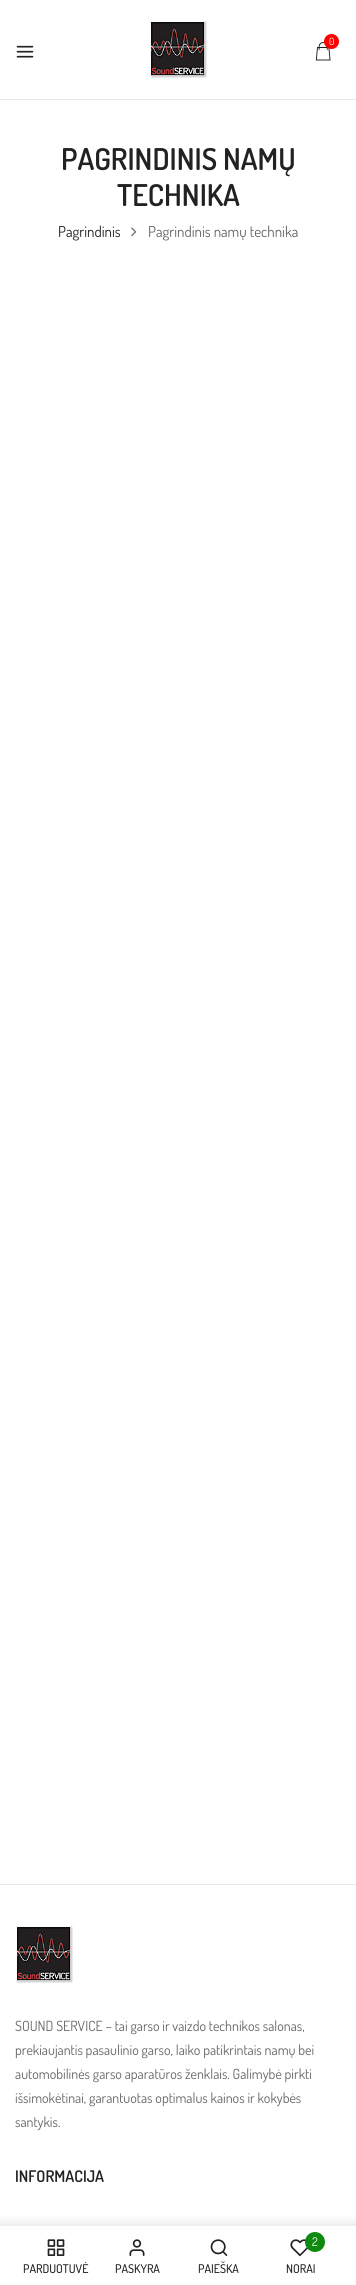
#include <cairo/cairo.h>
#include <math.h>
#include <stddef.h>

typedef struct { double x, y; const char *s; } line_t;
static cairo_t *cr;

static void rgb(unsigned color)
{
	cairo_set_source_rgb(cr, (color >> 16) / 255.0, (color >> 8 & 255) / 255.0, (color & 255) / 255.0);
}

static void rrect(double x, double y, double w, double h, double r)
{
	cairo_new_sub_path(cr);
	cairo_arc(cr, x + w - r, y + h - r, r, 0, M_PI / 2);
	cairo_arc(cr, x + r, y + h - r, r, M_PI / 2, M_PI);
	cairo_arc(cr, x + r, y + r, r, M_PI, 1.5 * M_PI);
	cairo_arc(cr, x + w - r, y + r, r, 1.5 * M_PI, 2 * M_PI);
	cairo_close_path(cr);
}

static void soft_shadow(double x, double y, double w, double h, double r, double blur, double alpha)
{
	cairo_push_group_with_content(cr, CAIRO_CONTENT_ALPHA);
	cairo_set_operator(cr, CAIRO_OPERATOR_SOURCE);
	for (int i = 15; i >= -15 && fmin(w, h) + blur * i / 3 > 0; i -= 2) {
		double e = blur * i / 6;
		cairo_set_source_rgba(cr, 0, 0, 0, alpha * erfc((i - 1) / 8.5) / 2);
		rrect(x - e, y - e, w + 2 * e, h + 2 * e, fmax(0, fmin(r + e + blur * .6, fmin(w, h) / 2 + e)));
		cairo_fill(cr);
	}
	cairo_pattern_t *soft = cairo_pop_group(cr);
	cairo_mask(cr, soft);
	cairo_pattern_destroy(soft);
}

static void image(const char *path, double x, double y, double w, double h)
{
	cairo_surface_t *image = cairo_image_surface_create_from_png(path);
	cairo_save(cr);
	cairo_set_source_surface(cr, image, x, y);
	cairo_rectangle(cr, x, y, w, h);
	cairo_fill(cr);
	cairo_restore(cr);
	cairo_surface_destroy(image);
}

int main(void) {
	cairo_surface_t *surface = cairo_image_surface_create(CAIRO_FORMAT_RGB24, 356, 2285);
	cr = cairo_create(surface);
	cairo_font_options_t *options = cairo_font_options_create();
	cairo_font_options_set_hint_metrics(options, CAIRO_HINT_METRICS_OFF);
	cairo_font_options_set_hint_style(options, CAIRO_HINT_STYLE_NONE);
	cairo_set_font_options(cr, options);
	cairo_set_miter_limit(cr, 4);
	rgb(0xffffff);
	cairo_paint(cr);
	image("img/1.png", 150, 21, 57, 57);
	image("img/2.png", 315, 42, 16, 19);
	rgb(0xff0000);
	cairo_arc(cr, 331.5, 41.5, 7.5, 0, 2 * M_PI);
	cairo_fill(cr);
	image("img/3.png", 16, 45, 18, 13);
	rgb(0x8f8f8f);
	soft_shadow(-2, 2225, 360, 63, 0, 6, 0.3);
	rgb(0xffffff);
	cairo_rectangle(cr, 0, 2226, 356, 59);
	cairo_fill(cr);
	image("img/4.png", 47, 2239, 18, 17);
	image("img/5.png", 129, 2239, 16, 17);
	image("img/6.png", 210, 2239, 18, 17);
	image("img/7.png", 290, 2239, 18, 18);
	rgb(0x0e8b0e);
	cairo_arc(cr, 315, 2242, 10, 0, 2 * M_PI);
	cairo_fill(cr);
	rgb(0xe9e9e9);
	cairo_rectangle(cr, 0, 99, 356, 1);
	cairo_fill(cr);
	image("img/8.png", 131, 227, 6, 10);
	cairo_rectangle(cr, 0, 1884, 356, 1);
	cairo_fill(cr);
	image("img/9.png", 16, 1926, 57, 57);
	cairo_select_font_face(cr, "Dosis", CAIRO_FONT_SLANT_NORMAL, CAIRO_FONT_WEIGHT_NORMAL);
	cairo_set_font_size(cr, 10);
	rgb(0xffffff);
	cairo_move_to(cr, 329, 45);
	cairo_show_text(cr, "0");
	cairo_select_font_face(cr, "Dosis Medium", CAIRO_FONT_SLANT_NORMAL, CAIRO_FONT_WEIGHT_NORMAL);
	cairo_set_font_size(cr, 12);
	rgb(0x222222);
	{
		static const line_t items[] = {
			{23, 2273, "PARDUOTUVĖ"},
			{115, 2273, "PASKYRA"},
			{198, 2273, "PAIEŠKA"},
		};
		for (size_t i = 0; i < sizeof items / sizeof *items; i++) {
			cairo_move_to(cr, items[i].x, items[i].y);
			cairo_show_text(cr, items[i].s);
		}
	}
	cairo_select_font_face(cr, "Dosis", CAIRO_FONT_SLANT_NORMAL, CAIRO_FONT_WEIGHT_NORMAL);
	rgb(0xffffff);
	cairo_move_to(cr, 312, 2246);
	cairo_show_text(cr, "2");
	cairo_select_font_face(cr, "Dosis Medium", CAIRO_FONT_SLANT_NORMAL, CAIRO_FONT_WEIGHT_NORMAL);
	rgb(0x222222);
	cairo_move_to(cr, 286, 2273);
	cairo_show_text(cr, "NORAI");
	cairo_select_font_face(cr, "Dosis SemiBold", CAIRO_FONT_SLANT_NORMAL, CAIRO_FONT_WEIGHT_NORMAL);
	cairo_set_font_size(cr, 30);
	cairo_move_to(cr, 61, 170);
	cairo_show_text(cr, "PAGRINDINIS NAMŲ");
	cairo_move_to(cr, 117, 206);
	cairo_show_text(cr, "TECHNIKA");
	cairo_select_font_face(cr, "Dosis", CAIRO_FONT_SLANT_NORMAL, CAIRO_FONT_WEIGHT_NORMAL);
	cairo_set_font_size(cr, 15);
	cairo_move_to(cr, 58, 237);
	cairo_show_text(cr, "Pagrindinis");
	rgb(0x666666);
	cairo_move_to(cr, 148, 237);
	cairo_show_text(cr, "Pagrindinis namų technika");
	cairo_set_font_size(cr, 14);
	{
		static const line_t items[] = {
			{15, 2031, "SOUND SERVICE – tai garso ir vaizdo technikos salonas,"},
			{15, 2055, "prekiaujantis pasaulinio garso, laiko patikrintais namų bei"},
			{15, 2079, "automobilinės garso aparatūros ženklais. Galimybė pirkti"},
			{15, 2103, "išsimokėtinai, garantuotas optimalus kainos ir kokybės"},
			{15, 2127, "santykis."},
		};
		for (size_t i = 0; i < sizeof items / sizeof *items; i++) {
			cairo_move_to(cr, items[i].x, items[i].y);
			cairo_show_text(cr, items[i].s);
		}
	}
	cairo_select_font_face(cr, "Dosis SemiBold", CAIRO_FONT_SLANT_NORMAL, CAIRO_FONT_WEIGHT_NORMAL);
	cairo_set_font_size(cr, 16);
	rgb(0x222222);
	cairo_move_to(cr, 15, 2182);
	cairo_show_text(cr, "INFORMACIJA");
	cairo_surface_write_to_png(surface, "page.png");
	cairo_font_options_destroy(options);
	cairo_destroy(cr);
	cairo_surface_destroy(surface);
	return 0;
}
